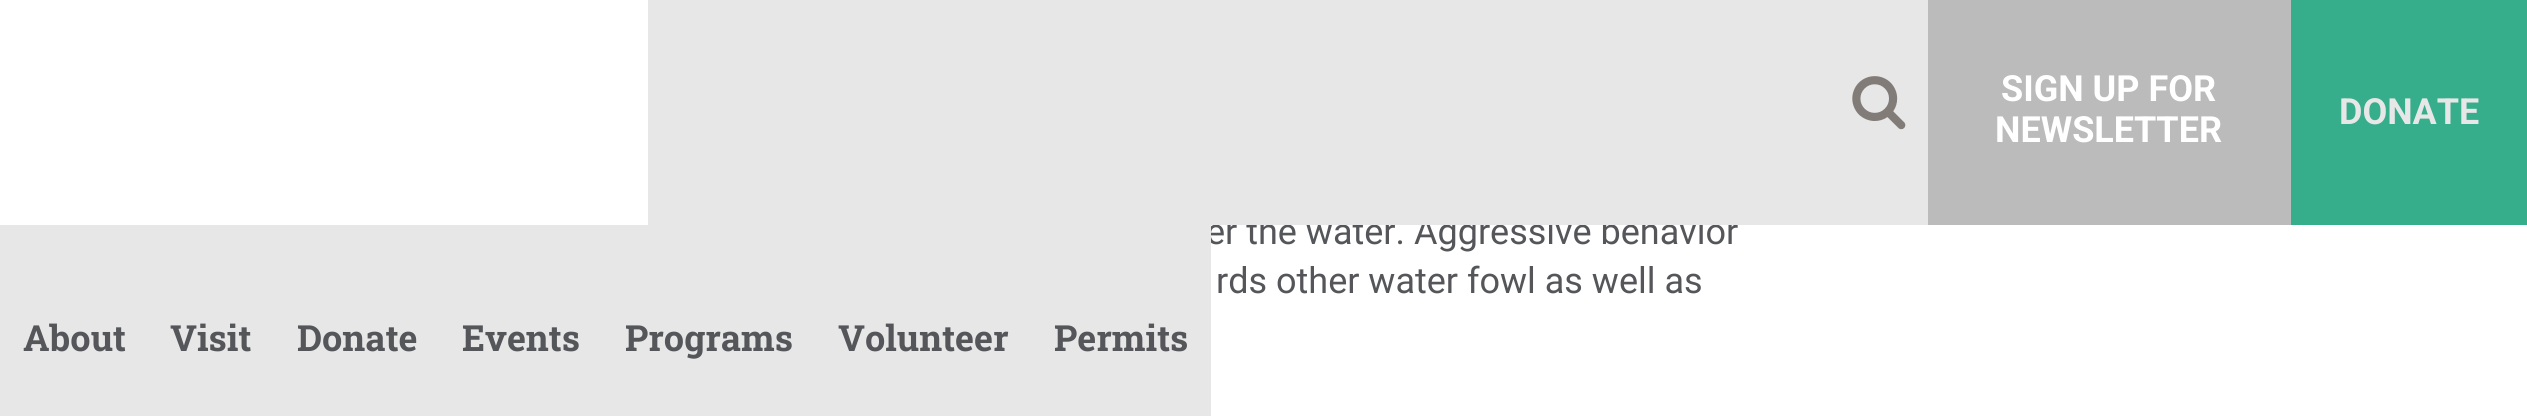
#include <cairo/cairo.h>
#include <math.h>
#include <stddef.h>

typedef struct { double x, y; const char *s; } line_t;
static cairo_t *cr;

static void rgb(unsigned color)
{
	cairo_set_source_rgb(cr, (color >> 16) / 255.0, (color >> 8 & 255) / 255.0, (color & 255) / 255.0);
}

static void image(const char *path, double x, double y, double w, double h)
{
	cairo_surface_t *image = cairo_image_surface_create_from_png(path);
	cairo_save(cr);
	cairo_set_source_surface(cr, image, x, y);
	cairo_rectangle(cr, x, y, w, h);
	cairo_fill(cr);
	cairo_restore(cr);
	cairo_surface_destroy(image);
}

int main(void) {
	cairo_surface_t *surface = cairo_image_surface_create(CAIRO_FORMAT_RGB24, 2527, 416);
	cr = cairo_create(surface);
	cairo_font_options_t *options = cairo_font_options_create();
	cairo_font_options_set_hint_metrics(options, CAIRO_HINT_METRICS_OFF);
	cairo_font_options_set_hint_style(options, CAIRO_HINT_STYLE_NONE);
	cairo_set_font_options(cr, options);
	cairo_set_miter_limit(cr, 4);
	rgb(0xffffff);
	cairo_paint(cr);
	rgb(0xbbbbbb);
	cairo_rectangle(cr, 1928, 0, 363, 225);
	cairo_fill(cr);
	rgb(0x36ad8b);
	cairo_rectangle(cr, 2291, 0, 236, 225);
	cairo_fill(cr);
	cairo_select_font_face(cr, "Roboto", CAIRO_FONT_SLANT_NORMAL, CAIRO_FONT_WEIGHT_BOLD);
	cairo_set_font_size(cr, 36);
	rgb(0xffffff);
	cairo_move_to(cr, 2001, 101);
	cairo_show_text(cr, "SIGN UP FOR");
	cairo_move_to(cr, 1995, 142);
	cairo_show_text(cr, "NEWSLETTER");
	rgb(0xe7e7e7);
	cairo_move_to(cr, 2339, 124);
	cairo_show_text(cr, "DONATE");
	cairo_select_font_face(cr, "Roboto", CAIRO_FONT_SLANT_NORMAL, CAIRO_FONT_WEIGHT_NORMAL);
	rgb(0x54565a);
	cairo_move_to(cr, 1206, 244);
	cairo_show_text(cr, "er the water. Aggressive behavior");
	rgb(0xe7e7e7);
	cairo_rectangle(cr, 0, 225, 1211, 191);
	cairo_fill(cr);
	cairo_select_font_face(cr, "Roboto Slab", CAIRO_FONT_SLANT_NORMAL, CAIRO_FONT_WEIGHT_BOLD);
	rgb(0x54565a);
	{
		static const line_t items[] = {
			{1054, 351, "Permits"},
			{838, 351, "Volunteer"},
			{625, 351, "Programs"},
			{462, 351, "Events"},
			{297, 351, "Donate"},
			{170, 351, "Visit"},
			{23, 351, "About"},
		};
		for (size_t i = 0; i < sizeof items / sizeof *items; i++) {
			cairo_move_to(cr, items[i].x, items[i].y);
			cairo_show_text(cr, items[i].s);
		}
	}
	rgb(0xe7e7e7);
	cairo_rectangle(cr, 648, 0, 1280, 225);
	cairo_fill(cr);
	image("img/1.png", 1852, 76, 54, 54);
	cairo_select_font_face(cr, "Roboto", CAIRO_FONT_SLANT_NORMAL, CAIRO_FONT_WEIGHT_NORMAL);
	rgb(0x54565a);
	cairo_move_to(cr, 1216, 293);
	cairo_show_text(cr, "rds other water fowl as well as");
	cairo_surface_write_to_png(surface, "page.png");
	cairo_font_options_destroy(options);
	cairo_destroy(cr);
	cairo_surface_destroy(surface);
	return 0;
}
